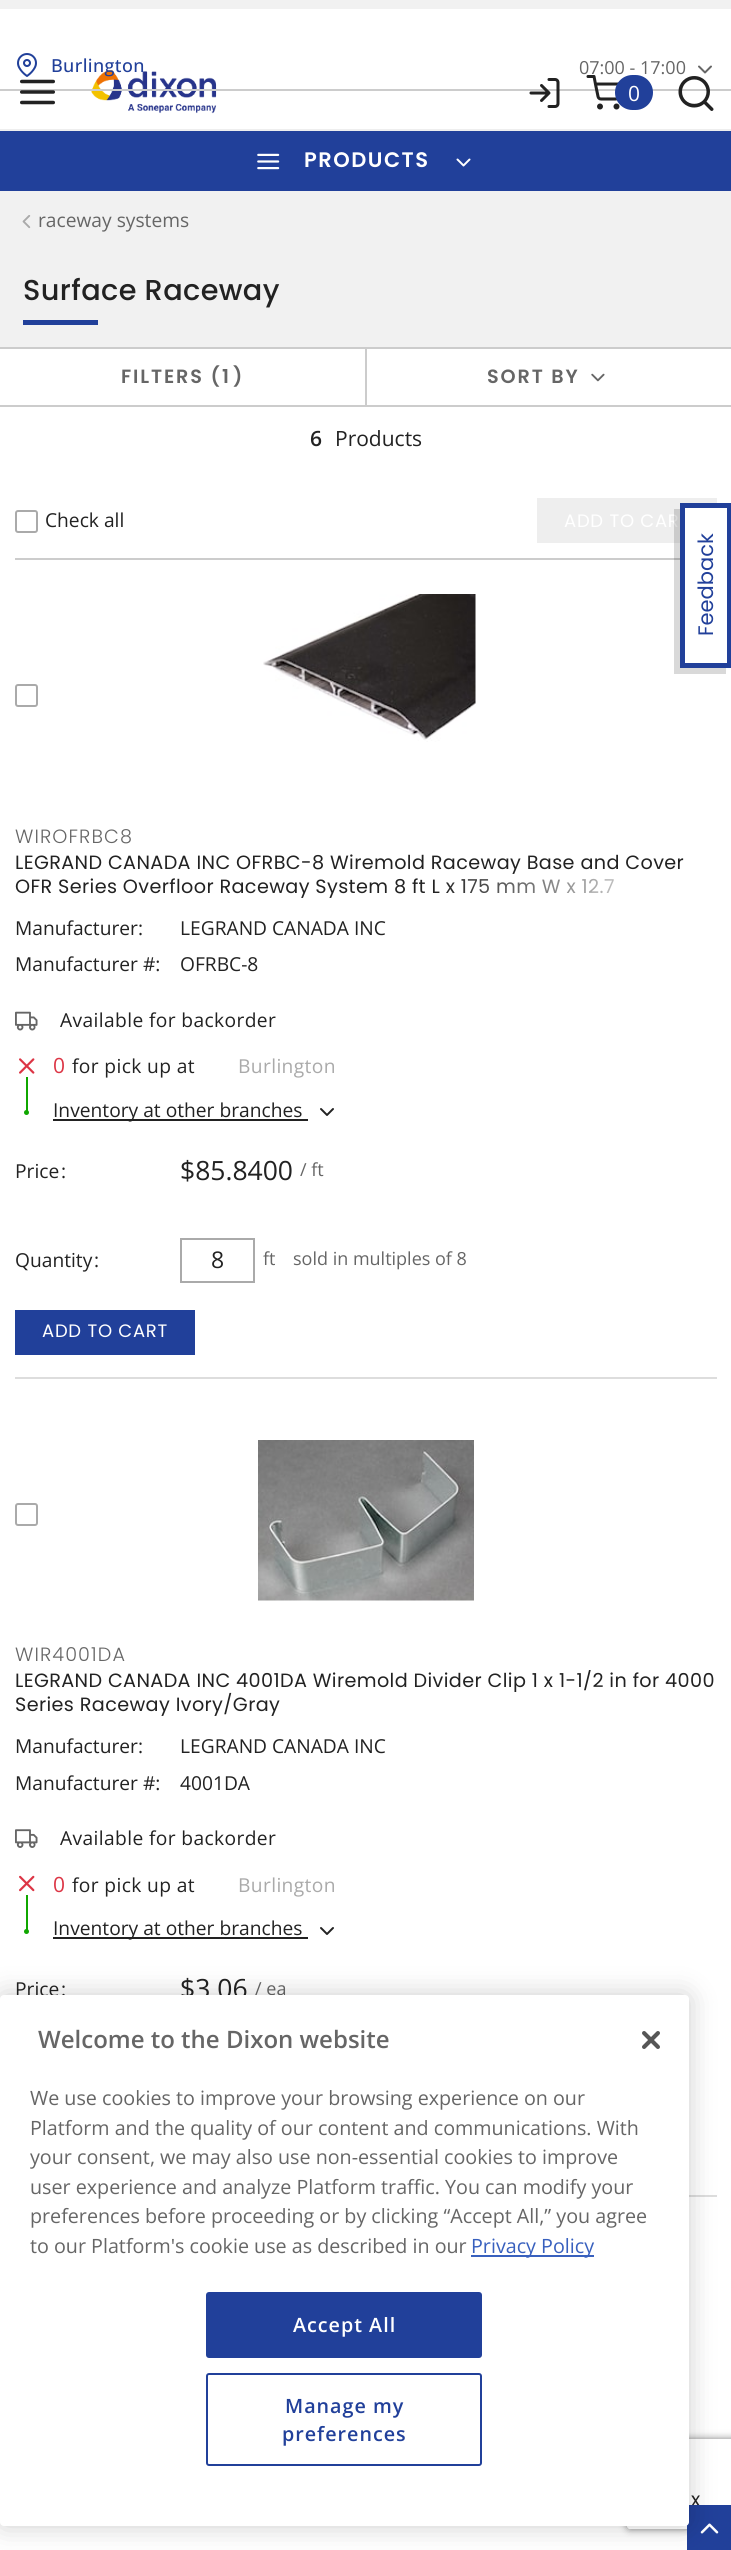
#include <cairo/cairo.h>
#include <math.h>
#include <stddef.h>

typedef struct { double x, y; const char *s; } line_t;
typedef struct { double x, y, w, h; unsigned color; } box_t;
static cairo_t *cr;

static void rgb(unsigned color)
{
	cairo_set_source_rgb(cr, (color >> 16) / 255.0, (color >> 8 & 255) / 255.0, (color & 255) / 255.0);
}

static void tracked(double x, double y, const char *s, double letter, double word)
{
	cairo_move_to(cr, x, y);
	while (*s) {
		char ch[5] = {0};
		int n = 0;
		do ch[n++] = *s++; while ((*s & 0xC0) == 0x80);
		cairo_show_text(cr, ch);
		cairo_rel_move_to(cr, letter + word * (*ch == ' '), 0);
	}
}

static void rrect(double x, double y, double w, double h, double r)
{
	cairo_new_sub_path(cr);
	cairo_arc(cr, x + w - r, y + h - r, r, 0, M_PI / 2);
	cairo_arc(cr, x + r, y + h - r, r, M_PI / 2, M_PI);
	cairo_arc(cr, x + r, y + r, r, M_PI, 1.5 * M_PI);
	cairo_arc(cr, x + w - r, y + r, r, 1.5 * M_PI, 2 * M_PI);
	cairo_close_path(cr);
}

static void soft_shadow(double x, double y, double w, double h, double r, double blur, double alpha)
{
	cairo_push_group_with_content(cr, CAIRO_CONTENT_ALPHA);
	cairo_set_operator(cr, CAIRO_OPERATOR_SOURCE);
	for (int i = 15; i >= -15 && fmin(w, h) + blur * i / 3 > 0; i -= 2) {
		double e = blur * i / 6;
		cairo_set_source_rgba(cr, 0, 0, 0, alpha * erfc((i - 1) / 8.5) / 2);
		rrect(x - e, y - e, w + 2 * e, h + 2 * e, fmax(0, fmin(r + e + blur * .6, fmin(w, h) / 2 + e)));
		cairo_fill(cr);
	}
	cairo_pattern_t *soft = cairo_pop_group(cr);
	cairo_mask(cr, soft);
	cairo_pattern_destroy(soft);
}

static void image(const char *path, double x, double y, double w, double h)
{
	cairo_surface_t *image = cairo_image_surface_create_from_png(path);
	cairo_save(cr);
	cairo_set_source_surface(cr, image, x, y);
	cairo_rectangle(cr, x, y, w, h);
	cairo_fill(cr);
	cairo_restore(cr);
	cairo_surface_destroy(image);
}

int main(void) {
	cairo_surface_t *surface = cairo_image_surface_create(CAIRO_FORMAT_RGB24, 731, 2550);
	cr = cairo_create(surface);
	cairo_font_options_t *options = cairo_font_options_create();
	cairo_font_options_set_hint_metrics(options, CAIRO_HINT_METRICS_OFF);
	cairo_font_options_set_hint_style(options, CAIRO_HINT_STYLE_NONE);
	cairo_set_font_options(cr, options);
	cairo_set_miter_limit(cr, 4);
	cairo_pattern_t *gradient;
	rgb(0xffffff);
	cairo_paint(cr);
	rgb(0xf1f1f1);
	cairo_rectangle(cr, 0, 0, 731, 9);
	cairo_fill(cr);
	rgb(0xeeeeee);
	cairo_rectangle(cr, 0, 129, 731, 2);
	cairo_fill(cr);
	image("img/3.png", 91, 69, 126, 45);
	rgb(0xcccccc);
	cairo_rectangle(cr, 0, 89, 731, 2);
	cairo_fill(cr);
	image("img/1.png", 17, 53, 20, 24);
	image("img/2.png", 698, 65, 14, 9);
	image("img/4.png", 529, 78, 31, 30);
	image("img/5.png", 586, 75, 34, 35);
	rgb(0x21409a);
	rrect(615, 75, 38, 35, 17.5);
	cairo_fill(cr);
	image("img/6.png", 678, 76, 36, 35);
	image("img/7.png", 20, 79, 35, 26);
	cairo_rectangle(cr, 0, 131, 731, 60);
	cairo_fill(cr);
	image("img/8.png", 257, 153, 23, 17);
	image("img/9.png", 456, 158, 15, 9);
	rgb(0xf1f1f1);
	cairo_rectangle(cr, 0, 191, 731, 156);
	cairo_fill(cr);
	image("img/10.png", 22, 215, 9, 14);
	{
		static const box_t items[] = {
			{23, 320, 75, 5, 0x21409a},
			{0, 347, 366, 2, 0xcccccc},
			{365, 347, 2, 60, 0xcccccc},
			{0, 405, 731, 2, 0xcccccc},
			{366, 347, 365, 2, 0xcccccc},
		};
		for (size_t i = 0; i < sizeof items / sizeof *items; i++) {
			rgb(items[i].color);
			cairo_rectangle(cr, items[i].x, items[i].y, items[i].w, items[i].h);
			cairo_fill(cr);
		}
	}
	image("img/11.png", 591, 373, 14, 9);
	cairo_rectangle(cr, 15, 558, 665, 2);
	cairo_fill(cr);
	rrect(16, 511, 21, 21, 2);
	rgb(0xaaaaaa);
	cairo_stroke(cr);
	rgb(0xeeeeee);
	cairo_rectangle(cr, 537, 498, 180, 45);
	cairo_fill(cr);
	rgb(0xdddddd);
	cairo_rectangle(cr, 15, 1377, 702, 2);
	cairo_fill(cr);
	rrect(16, 685, 21, 21, 2);
	rgb(0xaaaaaa);
	cairo_stroke(cr);
	image("img/12.png", 263, 594, 213, 148);
	image("img/13.png", 15, 1011, 23, 20);
	image("img/14.png", 19, 1058, 16, 16);
	rgb(0x10a700);
	cairo_rectangle(cr, 26, 1077, 2, 36);
	cairo_fill(cr);
	cairo_arc(cr, 26.5, 1112.5, 2.5, 0, 2 * M_PI);
	cairo_fill(cr);
	rgb(0x222222);
	cairo_rectangle(cr, 53, 1119, 255, 2);
	cairo_fill(cr);
	image("img/15.png", 320, 1108, 14, 8);
	cairo_rectangle(cr, 181, 1239, 73, 43);
	rgb(0xaaaaaa);
	cairo_stroke(cr);
	rgb(0x21409a);
	cairo_rectangle(cr, 15, 1310, 180, 45);
	cairo_fill(cr);
	rgb(0xdddddd);
	cairo_rectangle(cr, 689, 2195, 28, 2);
	cairo_fill(cr);
	rrect(16, 1504, 21, 21, 2);
	rgb(0xaaaaaa);
	cairo_stroke(cr);
	image("img/16.png", 258, 1440, 216, 161);
	image("img/17.png", 15, 1829, 23, 19);
	image("img/18.png", 19, 1875, 16, 17);
	rgb(0x10a700);
	cairo_rectangle(cr, 26, 1895, 2, 36);
	cairo_fill(cr);
	cairo_arc(cr, 26.5, 1931.5, 2.5, 0, 2 * M_PI);
	cairo_fill(cr);
	rgb(0x222222);
	cairo_rectangle(cr, 53, 1937, 255, 2);
	cairo_fill(cr);
	image("img/15.png", 320, 1927, 14, 8);
	cairo_save(cr);
	cairo_set_fill_rule(cr, CAIRO_FILL_RULE_EVEN_ODD);
	cairo_new_path(cr);
	cairo_move_to(cr, 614, 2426);
	cairo_line_to(cr, 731, 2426);
	cairo_line_to(cr, 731, 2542);
	cairo_line_to(cr, 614, 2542);
	cairo_close_path(cr);
	cairo_move_to(cr, 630, 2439);
	cairo_line_to(cr, 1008, 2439);
	cairo_curve_to(cr, 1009.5, 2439, 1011, 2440.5, 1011, 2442);
	cairo_line_to(cr, 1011, 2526);
	cairo_curve_to(cr, 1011, 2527.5, 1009.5, 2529, 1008, 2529);
	cairo_line_to(cr, 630, 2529);
	cairo_curve_to(cr, 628.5, 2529, 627, 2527.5, 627, 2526);
	cairo_line_to(cr, 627, 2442);
	cairo_curve_to(cr, 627, 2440.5, 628.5, 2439, 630, 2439);
	cairo_close_path(cr);
	cairo_clip(cr);
	rgb(0x808080);
	soft_shadow(627, 2439, 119, 90, 3, 4, 1);
	cairo_restore(cr);
	cairo_select_font_face(cr, "Open Sans Medium", CAIRO_FONT_SLANT_NORMAL, CAIRO_FONT_WEIGHT_NORMAL);
	cairo_set_font_size(cr, 18);
	rgb(0x21409a);
	tracked(51, 72, "Burlington", 0.38, 0);
	cairo_select_font_face(cr, "Open Sans", CAIRO_FONT_SLANT_NORMAL, CAIRO_FONT_WEIGHT_NORMAL);
	rgb(0x666666);
	cairo_move_to(cr, 579, 74);
	cairo_show_text(cr, "07:00 - 17:00");
	cairo_set_font_size(cr, 21);
	rgb(0xffffff);
	cairo_move_to(cr, 628, 101);
	cairo_show_text(cr, "0");
	cairo_select_font_face(cr, "Poppins SemiBold", CAIRO_FONT_SLANT_NORMAL, CAIRO_FONT_WEIGHT_NORMAL);
	tracked(304, 167, "PRODUCTS", 1.5, 0);
	cairo_select_font_face(cr, "Open Sans", CAIRO_FONT_SLANT_NORMAL, CAIRO_FONT_WEIGHT_NORMAL);
	cairo_set_font_size(cr, 19.2);
	rgb(0x666666);
	cairo_move_to(cr, 38, 227);
	cairo_show_text(cr, "raceway systems");
	cairo_select_font_face(cr, "Poppins Medium", CAIRO_FONT_SLANT_NORMAL, CAIRO_FONT_WEIGHT_NORMAL);
	cairo_set_font_size(cr, 28.75);
	rgb(0x222222);
	tracked(23, 300, "Surface Raceway", 0.38, 0);
	cairo_select_font_face(cr, "Poppins SemiBold", CAIRO_FONT_SLANT_NORMAL, CAIRO_FONT_WEIGHT_NORMAL);
	cairo_set_font_size(cr, 19.2);
	rgb(0x666666);
	{
		static const line_t items[] = {
			{121, 383, "FILTERS ("},
			{222, 383, "1"},
			{233, 383, ")"},
			{487, 383, "SORT BY"},
		};
		for (size_t i = 0; i < sizeof items / sizeof *items; i++) {
			tracked(items[i].x, items[i].y, items[i].s, 1.9, 0);
		}
	}
	cairo_select_font_face(cr, "Open Sans SemiBold", CAIRO_FONT_SLANT_NORMAL, CAIRO_FONT_WEIGHT_NORMAL);
	cairo_set_font_size(cr, 21);
	rgb(0x222222);
	cairo_move_to(cr, 310, 446);
	cairo_show_text(cr, "6");
	cairo_select_font_face(cr, "Open Sans", CAIRO_FONT_SLANT_NORMAL, CAIRO_FONT_WEIGHT_NORMAL);
	cairo_move_to(cr, 335, 446);
	cairo_show_text(cr, "Products");
	cairo_set_font_size(cr, 19.2);
	cairo_move_to(cr, 45, 527);
	cairo_show_text(cr, "Check all");
	cairo_select_font_face(cr, "Poppins", CAIRO_FONT_SLANT_NORMAL, CAIRO_FONT_WEIGHT_NORMAL);
	cairo_set_font_size(cr, 18);
	rgb(0xffffff);
	tracked(564, 527, "ADD TO CAR", 0.75, 0);
	cairo_select_font_face(cr, "Poppins Light", CAIRO_FONT_SLANT_NORMAL, CAIRO_FONT_WEIGHT_NORMAL);
	cairo_set_font_size(cr, 19.2);
	rgb(0x666666);
	tracked(15, 843, "WIROFRBC8", 1.1, 0);
	cairo_select_font_face(cr, "Poppins", CAIRO_FONT_SLANT_NORMAL, CAIRO_FONT_WEIGHT_NORMAL);
	rgb(0x222222);
	tracked(15, 869, "LEGRAND CANADA INC OFRBC-8 Wiremold Raceway Base and Cover", 0.38, 0);
	tracked(15, 893, "OFR Series Overfloor Raceway System 8 ft L x 175 mm W x 12.7", 0.38, 0);
	gradient = cairo_pattern_create_linear(437, 887, 717, 887);
	cairo_pattern_add_color_stop_rgba(gradient, 0, 1, 1, 1, 0);
	cairo_pattern_add_color_stop_rgba(gradient, 0.9, 1, 1, 1, 1);
	cairo_set_source(cr, gradient);
	cairo_pattern_destroy(gradient);
	cairo_rectangle(cr, 446, 878, 168, 16);
	cairo_fill(cr);
	cairo_select_font_face(cr, "Open Sans", CAIRO_FONT_SLANT_NORMAL, CAIRO_FONT_WEIGHT_NORMAL);
	rgb(0x222222);
	{
		static const line_t items[] = {
			{15, 935, "Manufacturer:"},
			{180, 935, "LEGRAND CANADA INC"},
			{15, 971, "Manufacturer #:"},
			{180, 971, "OFRBC-8"},
		};
		for (size_t i = 0; i < sizeof items / sizeof *items; i++) {
			cairo_move_to(cr, items[i].x, items[i].y);
			cairo_show_text(cr, items[i].s);
		}
	}
	tracked(60, 1027, "Available for backorder", 0.38, 0);
	cairo_set_font_size(cr, 21);
	rgb(0xdc3545);
	cairo_move_to(cr, 53, 1073);
	cairo_show_text(cr, "0");
	cairo_set_font_size(cr, 19.2);
	rgb(0x222222);
	tracked(72, 1073, "for pick up at", 0.38, 0);
	rgb(0xaaaaaa);
	tracked(238, 1073, "Burlington", 0.38, 0);
	rgb(0x222222);
	{
		static const line_t items[] = {
			{53, 1117, "Inventory at other branches"},
			{15, 1178, "Price"},
			{61, 1178, ":"},
		};
		for (size_t i = 0; i < sizeof items / sizeof *items; i++) {
			cairo_move_to(cr, items[i].x, items[i].y);
			cairo_show_text(cr, items[i].s);
		}
	}
	cairo_set_font_size(cr, 26.5);
	cairo_move_to(cr, 180, 1180);
	cairo_show_text(cr, "$85.8400");
	cairo_set_font_size(cr, 18);
	rgb(0x666666);
	cairo_move_to(cr, 300, 1176);
	cairo_show_text(cr, "/ ft");
	cairo_set_font_size(cr, 19.2);
	rgb(0x222222);
	cairo_move_to(cr, 15, 1267);
	cairo_show_text(cr, "Quantity");
	cairo_move_to(cr, 94, 1267);
	cairo_show_text(cr, ":");
	cairo_set_font_size(cr, 23);
	cairo_move_to(cr, 211, 1268);
	cairo_show_text(cr, "8");
	cairo_set_font_size(cr, 18);
	rgb(0x666666);
	cairo_move_to(cr, 263, 1265);
	cairo_show_text(cr, "ft");
	cairo_move_to(cr, 293, 1265);
	cairo_show_text(cr, "sold in multiples of 8");
	cairo_select_font_face(cr, "Poppins", CAIRO_FONT_SLANT_NORMAL, CAIRO_FONT_WEIGHT_NORMAL);
	rgb(0xffffff);
	tracked(42, 1337, "ADD TO CART", 0.75, 0);
	cairo_select_font_face(cr, "Poppins Light", CAIRO_FONT_SLANT_NORMAL, CAIRO_FONT_WEIGHT_NORMAL);
	cairo_set_font_size(cr, 19.2);
	rgb(0x666666);
	tracked(15, 1661, "WIR4001DA", 1.1, 0);
	cairo_save(cr);
	cairo_rectangle(cr, 15, 1670, 702, 48);
	cairo_clip(cr);
	cairo_select_font_face(cr, "Poppins", CAIRO_FONT_SLANT_NORMAL, CAIRO_FONT_WEIGHT_NORMAL);
	rgb(0x222222);
	tracked(15, 1687, "LEGRAND CANADA INC 4001DA Wiremold Divider Clip 1 x 1-1/2 in for 4000", 0.38, 0);
	cairo_restore(cr);
	cairo_select_font_face(cr, "Poppins", CAIRO_FONT_SLANT_NORMAL, CAIRO_FONT_WEIGHT_NORMAL);
	rgb(0x222222);
	tracked(15, 1711, "Series Raceway Ivory/Gray", 0.38, 0);
	cairo_select_font_face(cr, "Open Sans", CAIRO_FONT_SLANT_NORMAL, CAIRO_FONT_WEIGHT_NORMAL);
	{
		static const line_t items[] = {
			{15, 1753, "Manufacturer:"},
			{180, 1753, "LEGRAND CANADA INC"},
			{15, 1790, "Manufacturer #:"},
			{180, 1790, "4001DA"},
		};
		for (size_t i = 0; i < sizeof items / sizeof *items; i++) {
			cairo_move_to(cr, items[i].x, items[i].y);
			cairo_show_text(cr, items[i].s);
		}
	}
	tracked(60, 1845, "Available for backorder", 0.38, 0);
	cairo_set_font_size(cr, 21);
	rgb(0xdc3545);
	cairo_move_to(cr, 53, 1892);
	cairo_show_text(cr, "0");
	cairo_set_font_size(cr, 19.2);
	rgb(0x222222);
	tracked(72, 1892, "for pick up at", 0.38, 0);
	rgb(0xaaaaaa);
	tracked(238, 1892, "Burlington", 0.38, 0);
	rgb(0x222222);
	{
		static const line_t items[] = {
			{53, 1935, "Inventory at other branches"},
			{15, 1996, "Price"},
			{61, 1996, ":"},
		};
		for (size_t i = 0; i < sizeof items / sizeof *items; i++) {
			cairo_move_to(cr, items[i].x, items[i].y);
			cairo_show_text(cr, items[i].s);
		}
	}
	cairo_set_font_size(cr, 26.5);
	cairo_move_to(cr, 180, 1998);
	cairo_show_text(cr, "$3.06");
	cairo_set_font_size(cr, 18);
	rgb(0x666666);
	cairo_move_to(cr, 255, 1995);
	cairo_show_text(cr, "/ ea");
	cairo_select_font_face(cr, "Poppins", CAIRO_FONT_SLANT_NORMAL, CAIRO_FONT_WEIGHT_NORMAL);
	cairo_set_font_size(cr, 19.2);
	rgb(0x222222);
	tracked(691, 2506, "x", 0.38, 0);
	cairo_set_source_rgba(cr, 0, 0, 0, 0.15);
	cairo_new_path(cr);
	cairo_move_to(cr, 674, 509);
	cairo_line_to(cr, 674, 674);
	cairo_line_to(cr, 726, 674);
	cairo_line_to(cr, 726, 668);
	cairo_line_to(cr, 680, 668);
	cairo_line_to(cr, 680, 509);
	cairo_close_path(cr);
	cairo_fill(cr);
	rgb(0xffffff);
	cairo_rectangle(cr, 685, 508, 32, 35);
	cairo_fill(cr);
	cairo_rectangle(cr, 682.5, 505.5, 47, 160);
	rgb(0x21409a);
	cairo_set_line_width(cr, 5);
	cairo_stroke(cr);
	cairo_set_font_size(cr, 21);
	cairo_save(cr);
	cairo_translate(cr, 713, 636);
	cairo_rotate(cr, -90 * M_PI / 180);
	cairo_move_to(cr, 0, 0);
	cairo_show_text(cr, "Feedback");
	cairo_restore(cr);
	cairo_rectangle(cr, 687, 2505, 44, 45);
	cairo_fill(cr);
	image("img/20.png", 700, 2523, 19, 11);
	rgb(0x000000);
	soft_shadow(0, 1995, 689, 531, 4, 13.5, 0.2);
	rgb(0xffffff);
	rrect(0, 1995, 689, 531, 4);
	cairo_fill(cr);
	image("img/19.png", 642, 2031, 18, 18);
	rrect(207, 2374, 274, 91, 2);
	rgb(0x21409a);
	cairo_set_line_width(cr, 2);
	cairo_stroke(cr);
	cairo_select_font_face(cr, "Open Sans SemiBold", CAIRO_FONT_SLANT_NORMAL, CAIRO_FONT_WEIGHT_NORMAL);
	cairo_set_font_size(cr, 19.7);
	tracked(282, 2441, "preferences", 1, 0);
	tracked(285, 2413, "Manage my", 1, 0);
	rrect(207, 2293, 274, 64, 2);
	cairo_fill_preserve(cr);
	cairo_stroke(cr);
	rgb(0xffffff);
	tracked(293, 2332, "Accept All", 1, 0);
	rgb(0x3860be);
	cairo_rectangle(cr, 471, 2255, 123, 2);
	cairo_fill(cr);
	cairo_select_font_face(cr, "Open Sans", CAIRO_FONT_SLANT_NORMAL, CAIRO_FONT_WEIGHT_NORMAL);
	cairo_move_to(cr, 471, 2253);
	cairo_show_text(cr, "Privacy Policy");
	rgb(0x666666);
	{
		static const line_t items[] = {
			{30, 2253, "to our Platform's cookie use as described in our"},
			{30, 2223, "preferences before proceeding or by clicking “Accept All,” you agree"},
			{30, 2194, "user experience and analyze Platform traffic. You can modify your"},
			{30, 2164, "your consent, we may also use non-essential cookies to improve"},
			{30, 2135, "Platform and the quality of our content and communications. With"},
			{30, 2105, "We use cookies to improve your browsing experience on our"},
		};
		for (size_t i = 0; i < sizeof items / sizeof *items; i++) {
			cairo_move_to(cr, items[i].x, items[i].y);
			cairo_show_text(cr, items[i].s);
		}
	}
	cairo_select_font_face(cr, "Open Sans SemiBold", CAIRO_FONT_SLANT_NORMAL, CAIRO_FONT_WEIGHT_NORMAL);
	cairo_set_font_size(cr, 24);
	cairo_move_to(cr, 38, 2048);
	cairo_show_text(cr, "Welcome to the Dixon website");
	cairo_surface_write_to_png(surface, "page.png");
	cairo_font_options_destroy(options);
	cairo_destroy(cr);
	cairo_surface_destroy(surface);
	return 0;
}
